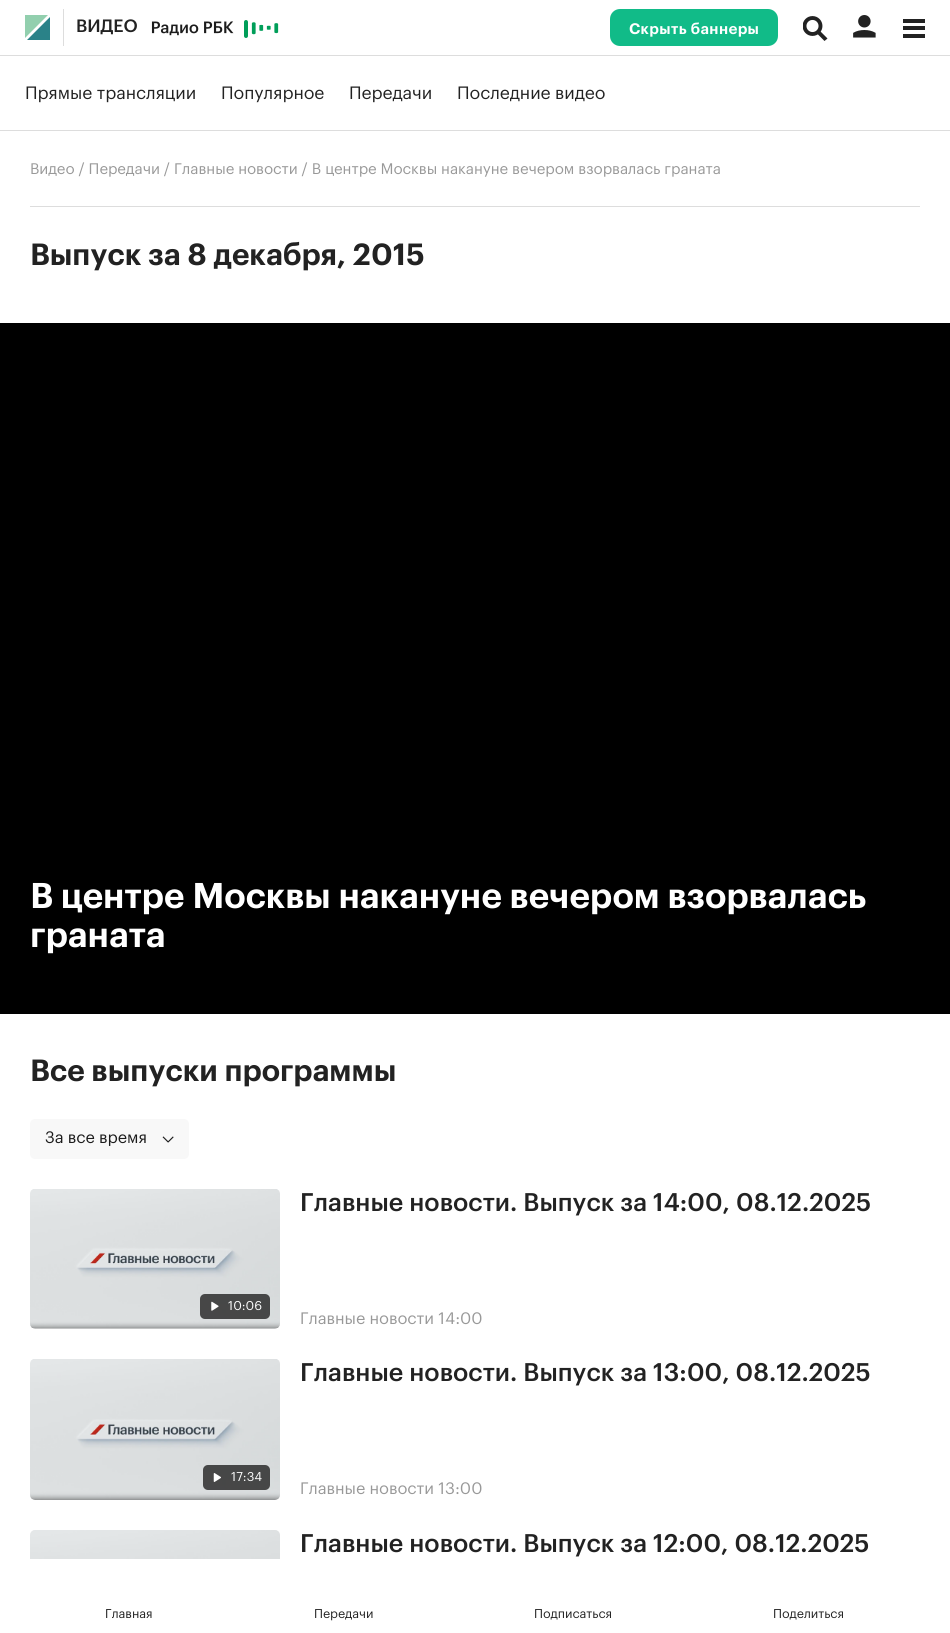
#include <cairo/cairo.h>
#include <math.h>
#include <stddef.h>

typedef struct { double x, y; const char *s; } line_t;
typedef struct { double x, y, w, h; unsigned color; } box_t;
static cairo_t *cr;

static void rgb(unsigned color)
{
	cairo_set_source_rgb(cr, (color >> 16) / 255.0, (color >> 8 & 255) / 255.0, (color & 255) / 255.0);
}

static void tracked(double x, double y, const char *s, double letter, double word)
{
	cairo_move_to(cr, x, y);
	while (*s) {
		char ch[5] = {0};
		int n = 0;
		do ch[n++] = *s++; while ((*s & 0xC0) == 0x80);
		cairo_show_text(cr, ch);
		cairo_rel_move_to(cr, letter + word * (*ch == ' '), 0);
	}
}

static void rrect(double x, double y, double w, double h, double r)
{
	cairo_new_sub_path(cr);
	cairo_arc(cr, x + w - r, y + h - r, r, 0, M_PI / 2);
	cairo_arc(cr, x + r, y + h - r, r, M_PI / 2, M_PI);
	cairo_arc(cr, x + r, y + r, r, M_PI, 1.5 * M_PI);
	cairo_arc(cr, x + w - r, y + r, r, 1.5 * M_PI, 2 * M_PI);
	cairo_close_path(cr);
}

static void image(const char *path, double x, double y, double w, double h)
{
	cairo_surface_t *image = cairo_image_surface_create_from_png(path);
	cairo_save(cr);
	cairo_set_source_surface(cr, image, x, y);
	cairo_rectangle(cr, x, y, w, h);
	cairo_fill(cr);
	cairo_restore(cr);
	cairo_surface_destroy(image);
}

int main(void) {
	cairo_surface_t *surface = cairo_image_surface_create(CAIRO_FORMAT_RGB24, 950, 1633);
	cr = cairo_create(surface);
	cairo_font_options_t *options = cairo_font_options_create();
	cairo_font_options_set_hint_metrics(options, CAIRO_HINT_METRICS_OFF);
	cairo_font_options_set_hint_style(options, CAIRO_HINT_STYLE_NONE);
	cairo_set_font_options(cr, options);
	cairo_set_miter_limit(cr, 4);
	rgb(0xffffff);
	cairo_paint(cr);
	rgb(0xdddddd);
	cairo_rectangle(cr, 0, 55, 950, 1);
	cairo_fill(cr);
	rgb(0x92cfae);
	cairo_set_fill_rule(cr, CAIRO_FILL_RULE_EVEN_ODD);
	cairo_new_path(cr);
	cairo_move_to(cr, 25, 15);
	cairo_line_to(cr, 25, 38);
	cairo_line_to(cr, 48, 15);
	cairo_close_path(cr);
	cairo_fill(cr);
	rgb(0x2a8288);
	cairo_new_path(cr);
	cairo_move_to(cr, 27, 40);
	cairo_line_to(cr, 50, 40);
	cairo_line_to(cr, 50, 17);
	cairo_close_path(cr);
	cairo_fill(cr);
	rgb(0xdddddd);
	cairo_rectangle(cr, 63, 9, 1, 37);
	cairo_fill(cr);
	image("img/1.png", 151, 20, 128, 18);
	rgb(0x11bb88);
	rrect(610, 9, 168, 37, 10);
	cairo_fill(cr);
	rgb(0x222222);
	cairo_new_path(cr);
	cairo_move_to(cr, 827.5, 38.5);
	cairo_line_to(cr, 824.5, 41);
	cairo_line_to(cr, 815, 31.5);
	cairo_line_to(cr, 817.5, 28.5);
	cairo_close_path(cr);
	cairo_fill(cr);
	rgb(0xffffff);
	cairo_arc(cr, 812.5, 26, 8, 0, 2 * M_PI);
	cairo_fill(cr);
	cairo_save(cr);
	cairo_set_fill_rule(cr, CAIRO_FILL_RULE_WINDING);
	cairo_rectangle(cr, 803, 16, 25, 25);
	cairo_clip(cr);
	cairo_arc(cr, 812.5, 26, 8, 0, 2 * M_PI);
	rgb(0x222222);
	cairo_set_line_width(cr, 3.9);
	cairo_stroke(cr);
	cairo_restore(cr);
	image("img/2.png", 853, 15, 23, 23);
	{
		static const box_t items[] = {
			{903, 19, 22, 4, 0x222222},
			{903, 26, 22, 4, 0x222222},
			{903, 34, 22, 4, 0x222222},
			{0, 130, 950, 1, 0xdddddd},
			{30, 206, 890, 1, 0xdddddd},
			{0, 323, 950, 691, 0x000000},
		};
		for (size_t i = 0; i < sizeof items / sizeof *items; i++) {
			rgb(items[i].color);
			cairo_rectangle(cr, items[i].x, items[i].y, items[i].w, items[i].h);
			cairo_fill(cr);
		}
	}
	rgb(0xf8f8f8);
	rrect(30, 1119, 159, 40, 5);
	cairo_fill(cr);
	image("img/3.png", 162, 1136, 12, 7);
	image("img/4.png", 30, 1189, 250, 140);
	cairo_set_source_rgba(cr, 0.133, 0.133, 0.133, 0.8);
	rrect(200, 1294, 70, 25, 5);
	cairo_fill(cr);
	image("img/5.png", 211, 1301, 8, 10);
	image("img/6.png", 30, 1359, 250, 141);
	rrect(203, 1465, 67, 25, 5);
	cairo_fill(cr);
	image("img/7.png", 213, 1473, 8, 9);
	image("img/8.png", 30, 1530, 250, 29);
	cairo_select_font_face(cr, "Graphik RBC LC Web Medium", CAIRO_FONT_SLANT_NORMAL, CAIRO_FONT_WEIGHT_NORMAL);
	cairo_set_font_size(cr, 17.5);
	rgb(0x222222);
	cairo_move_to(cr, 76, 32);
	cairo_show_text(cr, "ВИДЕО");
	cairo_select_font_face(cr, "Graphik RBC LC Web SemiBold", CAIRO_FONT_SLANT_NORMAL, CAIRO_FONT_WEIGHT_NORMAL);
	cairo_set_font_size(cr, 15);
	rgb(0xffffff);
	tracked(629, 34, "Скрыть баннеры", 0.4, 0);
	cairo_select_font_face(cr, "Graphik RBC LC Web", CAIRO_FONT_SLANT_NORMAL, CAIRO_FONT_WEIGHT_NORMAL);
	cairo_set_font_size(cr, 17.5);
	rgb(0x222222);
	{
		static const line_t items[] = {
			{25, 99, "Прямые трансляции"},
			{221, 99, "Популярное"},
			{349, 99, "Передачи"},
			{457, 99, "Последние видео"},
		};
		for (size_t i = 0; i < sizeof items / sizeof *items; i++) {
			cairo_move_to(cr, items[i].x, items[i].y);
			cairo_show_text(cr, items[i].s);
		}
	}
	cairo_set_font_size(cr, 15);
	rgb(0x999999);
	cairo_move_to(cr, 30, 174);
	cairo_show_text(cr, "Видео / Передачи / Главные новости / В центре Москвы накануне вечером взорвалась граната");
	cairo_select_font_face(cr, "Graphik RBC LC Web SemiBold", CAIRO_FONT_SLANT_NORMAL, CAIRO_FONT_WEIGHT_NORMAL);
	cairo_set_font_size(cr, 30);
	rgb(0x222222);
	cairo_move_to(cr, 30, 265);
	cairo_show_text(cr, "Выпуск за 8 декабря, 2015");
	cairo_set_font_size(cr, 35);
	rgb(0xffffff);
	cairo_move_to(cr, 30, 908);
	cairo_show_text(cr, "В центре Москвы накануне вечером взорвалась");
	cairo_move_to(cr, 30, 947);
	cairo_show_text(cr, "граната");
	cairo_set_font_size(cr, 30);
	rgb(0x222222);
	cairo_move_to(cr, 30, 1081);
	cairo_show_text(cr, "Все выпуски программы");
	cairo_select_font_face(cr, "Graphik RBC LC Web", CAIRO_FONT_SLANT_NORMAL, CAIRO_FONT_WEIGHT_NORMAL);
	cairo_set_font_size(cr, 16.25);
	rgb(0x1c1c1c);
	cairo_move_to(cr, 45, 1143);
	cairo_show_text(cr, "За все время");
	cairo_set_font_size(cr, 12.5);
	rgb(0xffffff);
	cairo_move_to(cr, 228, 1310);
	cairo_show_text(cr, "10:06");
	cairo_select_font_face(cr, "Graphik RBC LC Web Medium", CAIRO_FONT_SLANT_NORMAL, CAIRO_FONT_WEIGHT_NORMAL);
	cairo_set_font_size(cr, 25);
	rgb(0x222222);
	cairo_move_to(cr, 300, 1211);
	cairo_show_text(cr, "Главные новости. Выпуск за 14:00, 08.12.2025");
	cairo_select_font_face(cr, "Graphik RBC LC Web", CAIRO_FONT_SLANT_NORMAL, CAIRO_FONT_WEIGHT_NORMAL);
	cairo_set_font_size(cr, 16.25);
	rgb(0x999999);
	cairo_move_to(cr, 300, 1324);
	cairo_show_text(cr, "Главные новости 14:00");
	cairo_set_font_size(cr, 12.5);
	rgb(0xffffff);
	cairo_move_to(cr, 231, 1481);
	cairo_show_text(cr, "17:34");
	cairo_select_font_face(cr, "Graphik RBC LC Web Medium", CAIRO_FONT_SLANT_NORMAL, CAIRO_FONT_WEIGHT_NORMAL);
	cairo_set_font_size(cr, 25);
	rgb(0x222222);
	cairo_move_to(cr, 300, 1381);
	cairo_show_text(cr, "Главные новости. Выпуск за 13:00, 08.12.2025");
	cairo_select_font_face(cr, "Graphik RBC LC Web", CAIRO_FONT_SLANT_NORMAL, CAIRO_FONT_WEIGHT_NORMAL);
	cairo_set_font_size(cr, 16.25);
	rgb(0x999999);
	cairo_move_to(cr, 300, 1494);
	cairo_show_text(cr, "Главные новости 13:00");
	cairo_select_font_face(cr, "Graphik RBC LC Web Medium", CAIRO_FONT_SLANT_NORMAL, CAIRO_FONT_WEIGHT_NORMAL);
	cairo_set_font_size(cr, 25);
	rgb(0x222222);
	cairo_move_to(cr, 300, 1552);
	cairo_show_text(cr, "Главные новости. Выпуск за 12:00, 08.12.2025");
	cairo_select_font_face(cr, "Graphik RBC LC Web", CAIRO_FONT_SLANT_NORMAL, CAIRO_FONT_WEIGHT_NORMAL);
	cairo_set_font_size(cr, 12.5);
	{
		static const line_t items[] = {
			{105, 1618, "Главная"},
			{314, 1618, "Передачи"},
			{534, 1618, "Подписаться"},
			{773, 1618, "Поделиться"},
		};
		for (size_t i = 0; i < sizeof items / sizeof *items; i++) {
			cairo_move_to(cr, items[i].x, items[i].y);
			cairo_show_text(cr, items[i].s);
		}
	}
	cairo_surface_write_to_png(surface, "page.png");
	cairo_font_options_destroy(options);
	cairo_destroy(cr);
	cairo_surface_destroy(surface);
	return 0;
}
